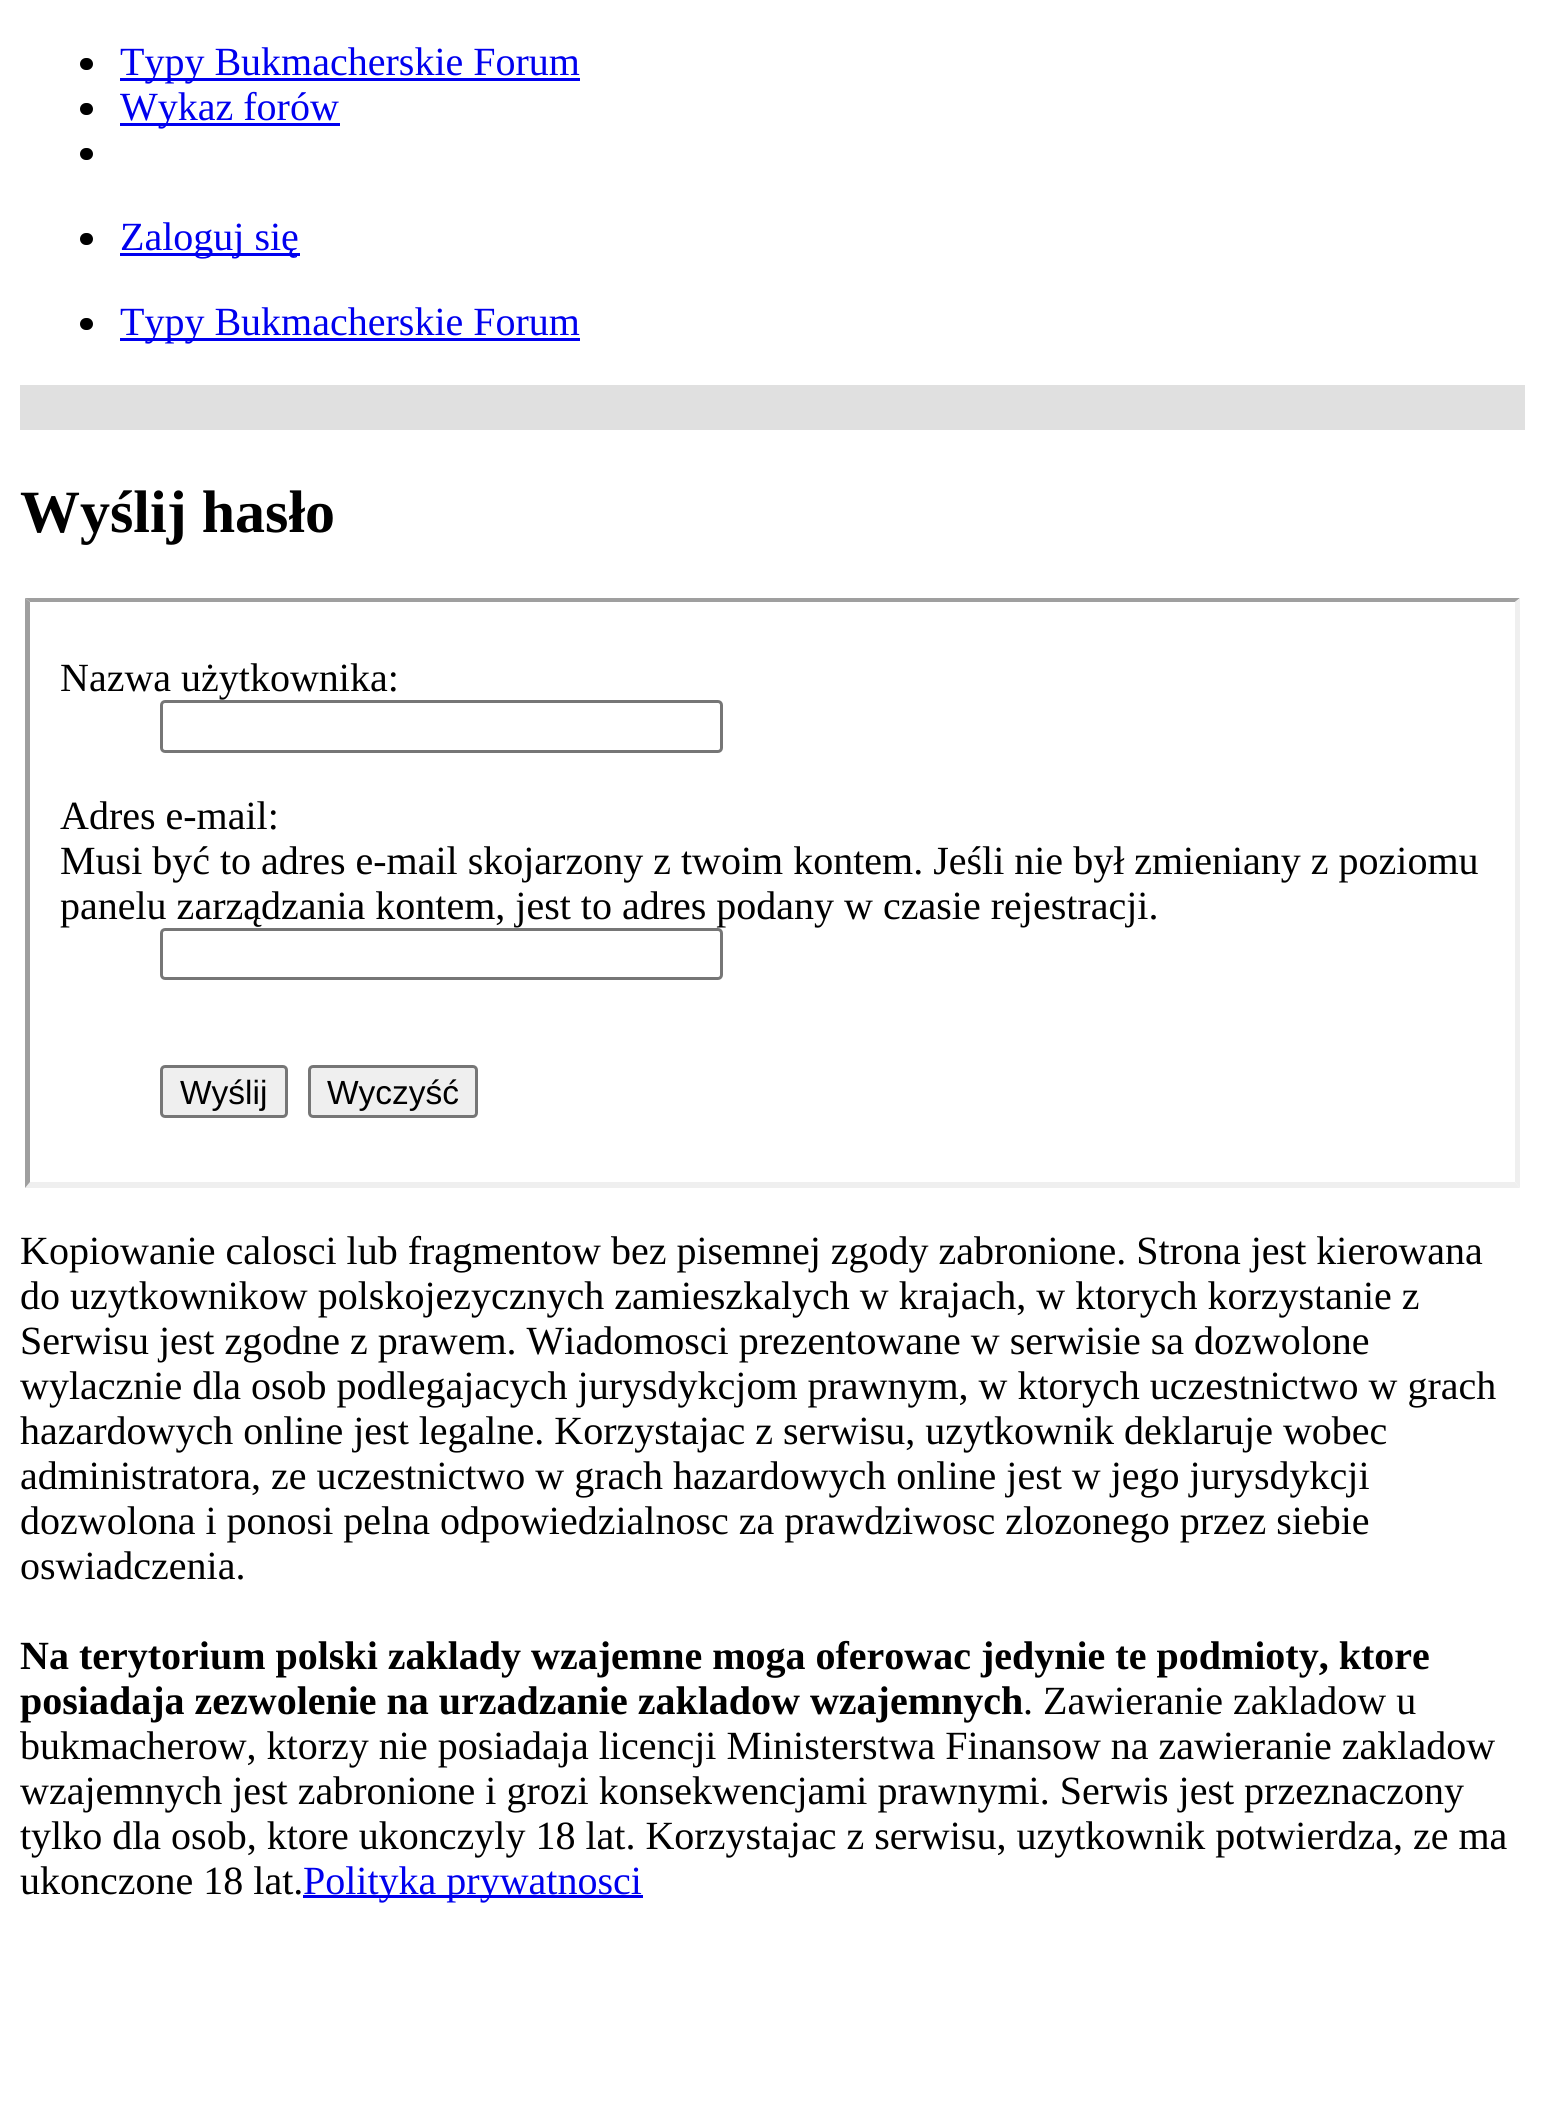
#include <cairo/cairo.h>
#include <math.h>
#include <stddef.h>

typedef struct { double x, y; const char *s; } line_t;
static cairo_t *cr;

static void rgb(unsigned color)
{
	cairo_set_source_rgb(cr, (color >> 16) / 255.0, (color >> 8 & 255) / 255.0, (color & 255) / 255.0);
}

static void rrect(double x, double y, double w, double h, double r)
{
	cairo_new_sub_path(cr);
	cairo_arc(cr, x + w - r, y + h - r, r, 0, M_PI / 2);
	cairo_arc(cr, x + r, y + h - r, r, M_PI / 2, M_PI);
	cairo_arc(cr, x + r, y + r, r, M_PI, 1.5 * M_PI);
	cairo_arc(cr, x + w - r, y + r, r, 1.5 * M_PI, 2 * M_PI);
	cairo_close_path(cr);
}

int main(void) {
	cairo_surface_t *surface = cairo_image_surface_create(CAIRO_FORMAT_RGB24, 1543, 2111);
	cr = cairo_create(surface);
	cairo_font_options_t *options = cairo_font_options_create();
	cairo_font_options_set_hint_metrics(options, CAIRO_HINT_METRICS_OFF);
	cairo_font_options_set_hint_style(options, CAIRO_HINT_STYLE_NONE);
	cairo_set_font_options(cr, options);
	cairo_set_miter_limit(cr, 4);
	rgb(0xffffff);
	cairo_paint(cr);
	rgb(0x000000);
	rrect(80, 58, 13, 12, 6);
	cairo_fill(cr);
	rgb(0x0000ee);
	cairo_rectangle(cr, 120, 78, 460, 3);
	cairo_fill(cr);
	rgb(0x000000);
	rrect(80, 103, 13, 12, 6);
	cairo_fill(cr);
	rgb(0x0000ee);
	cairo_rectangle(cr, 120, 123, 220, 3);
	cairo_fill(cr);
	rgb(0x000000);
	rrect(80, 148, 13, 12, 6);
	cairo_fill(cr);
	rrect(80, 233, 13, 12, 6);
	cairo_fill(cr);
	rgb(0x0000ee);
	cairo_rectangle(cr, 120, 253, 180, 3);
	cairo_fill(cr);
	rgb(0x000000);
	rrect(80, 318, 13, 12, 6);
	cairo_fill(cr);
	rgb(0x0000ee);
	cairo_rectangle(cr, 120, 338, 460, 3);
	cairo_fill(cr);
	rgb(0xe0e0e0);
	cairo_rectangle(cr, 20, 385, 1505, 45);
	cairo_fill(cr);
	rgb(0x9f9f9f);
	cairo_new_path(cr);
	cairo_move_to(cr, 25, 598);
	cairo_line_to(cr, 1520, 598);
	cairo_line_to(cr, 1515, 602);
	cairo_line_to(cr, 30, 602);
	cairo_close_path(cr);
	cairo_fill(cr);
	rgb(0xefefef);
	cairo_new_path(cr);
	cairo_move_to(cr, 1520, 598);
	cairo_line_to(cr, 1520, 1188);
	cairo_line_to(cr, 1515, 1182);
	cairo_line_to(cr, 1515, 602);
	cairo_close_path(cr);
	cairo_fill(cr);
	cairo_new_path(cr);
	cairo_move_to(cr, 1520, 1188);
	cairo_line_to(cr, 25, 1188);
	cairo_line_to(cr, 30, 1182);
	cairo_line_to(cr, 1515, 1182);
	cairo_close_path(cr);
	cairo_fill(cr);
	rgb(0x9f9f9f);
	cairo_new_path(cr);
	cairo_move_to(cr, 25, 1188);
	cairo_line_to(cr, 25, 598);
	cairo_line_to(cr, 30, 602);
	cairo_line_to(cr, 30, 1182);
	cairo_close_path(cr);
	cairo_fill(cr);
	rrect(161.5, 701.5, 560, 50, 3.5);
	rgb(0x767676);
	cairo_set_line_width(cr, 3);
	cairo_stroke(cr);
	rrect(161.5, 929.5, 560, 49, 3.5);
	cairo_stroke(cr);
	rgb(0xefefef);
	rrect(161.5, 1066.5, 125, 50, 3.5);
	cairo_fill_preserve(cr);
	rgb(0x767676);
	cairo_stroke(cr);
	rgb(0xefefef);
	rrect(309.5, 1066.5, 167, 50, 3.5);
	cairo_fill_preserve(cr);
	rgb(0x767676);
	cairo_stroke(cr);
	rgb(0x0000ee);
	cairo_rectangle(cr, 303, 1895, 340, 3);
	cairo_fill(cr);
	cairo_select_font_face(cr, "Liberation Serif", CAIRO_FONT_SLANT_NORMAL, CAIRO_FONT_WEIGHT_NORMAL);
	cairo_set_font_size(cr, 40);
	{
		static const line_t items[] = {
			{120, 75, "Typy Bukmacherskie Forum"},
			{120, 120, "Wykaz forów"},
			{120, 250, "Zaloguj się"},
			{120, 335, "Typy Bukmacherskie Forum"},
		};
		for (size_t i = 0; i < sizeof items / sizeof *items; i++) {
			cairo_move_to(cr, items[i].x, items[i].y);
			cairo_show_text(cr, items[i].s);
		}
	}
	cairo_select_font_face(cr, "Liberation Serif", CAIRO_FONT_SLANT_NORMAL, CAIRO_FONT_WEIGHT_BOLD);
	cairo_set_font_size(cr, 60);
	rgb(0x000000);
	cairo_move_to(cr, 20, 532);
	cairo_show_text(cr, "Wyślij hasło");
	cairo_select_font_face(cr, "Liberation Serif", CAIRO_FONT_SLANT_NORMAL, CAIRO_FONT_WEIGHT_NORMAL);
	cairo_set_font_size(cr, 40);
	{
		static const line_t items[] = {
			{60, 691, "Nazwa użytkownika:"},
			{60, 829, "Adres e-mail:"},
			{60, 874, "Musi być to adres e-mail skojarzony z twoim kontem. Jeśli nie był zmieniany z poziomu"},
			{60, 919, "panelu zarządzania kontem, jest to adres podany w czasie rejestracji."},
		};
		for (size_t i = 0; i < sizeof items / sizeof *items; i++) {
			cairo_move_to(cr, items[i].x, items[i].y);
			cairo_show_text(cr, items[i].s);
		}
	}
	cairo_select_font_face(cr, "Liberation Sans", CAIRO_FONT_SLANT_NORMAL, CAIRO_FONT_WEIGHT_NORMAL);
	cairo_set_font_size(cr, 33.5);
	cairo_move_to(cr, 180, 1104);
	cairo_show_text(cr, "Wyślij");
	cairo_move_to(cr, 327, 1104);
	cairo_show_text(cr, "Wyczyść");
	cairo_select_font_face(cr, "Liberation Serif", CAIRO_FONT_SLANT_NORMAL, CAIRO_FONT_WEIGHT_NORMAL);
	cairo_set_font_size(cr, 40);
	{
		static const line_t items[] = {
			{20, 1264, "Kopiowanie calosci lub fragmentow bez pisemnej zgody zabronione. Strona jest kierowana"},
			{20, 1309, "do uzytkownikow polskojezycznych zamieszkalych w krajach, w ktorych korzystanie z"},
			{20, 1354, "Serwisu jest zgodne z prawem. Wiadomosci prezentowane w serwisie sa dozwolone"},
			{20, 1399, "wylacznie dla osob podlegajacych jurysdykcjom prawnym, w ktorych uczestnictwo w grach"},
			{20, 1444, "hazardowych online jest legalne. Korzystajac z serwisu, uzytkownik deklaruje wobec"},
			{20, 1489, "administratora, ze uczestnictwo w grach hazardowych online jest w jego jurysdykcji"},
			{20, 1534, "dozwolona i ponosi pelna odpowiedzialnosc za prawdziwosc zlozonego przez siebie"},
			{20, 1579, "oswiadczenia."},
		};
		for (size_t i = 0; i < sizeof items / sizeof *items; i++) {
			cairo_move_to(cr, items[i].x, items[i].y);
			cairo_show_text(cr, items[i].s);
		}
	}
	cairo_select_font_face(cr, "Liberation Serif", CAIRO_FONT_SLANT_NORMAL, CAIRO_FONT_WEIGHT_BOLD);
	cairo_move_to(cr, 20, 1669);
	cairo_show_text(cr, "Na terytorium polski zaklady wzajemne moga oferowac jedynie te podmioty, ktore");
	cairo_move_to(cr, 20, 1714);
	cairo_show_text(cr, "posiadaja zezwolenie na urzadzanie zakladow wzajemnych");
	cairo_select_font_face(cr, "Liberation Serif", CAIRO_FONT_SLANT_NORMAL, CAIRO_FONT_WEIGHT_NORMAL);
	{
		static const line_t items[] = {
			{1023, 1714, ". Zawieranie zakladow u"},
			{20, 1759, "bukmacherow, ktorzy nie posiadaja licencji Ministerstwa Finansow na zawieranie zakladow"},
			{20, 1804, "wzajemnych jest zabronione i grozi konsekwencjami prawnymi. Serwis jest przeznaczony"},
			{20, 1849, "tylko dla osob, ktore ukonczyly 18 lat. Korzystajac z serwisu, uzytkownik potwierdza, ze ma"},
			{20, 1894, "ukonczone 18 lat."},
		};
		for (size_t i = 0; i < sizeof items / sizeof *items; i++) {
			cairo_move_to(cr, items[i].x, items[i].y);
			cairo_show_text(cr, items[i].s);
		}
	}
	rgb(0x0000ee);
	cairo_move_to(cr, 303, 1894);
	cairo_show_text(cr, "Polityka prywatnosci");
	cairo_surface_write_to_png(surface, "page.png");
	cairo_font_options_destroy(options);
	cairo_destroy(cr);
	cairo_surface_destroy(surface);
	return 0;
}
